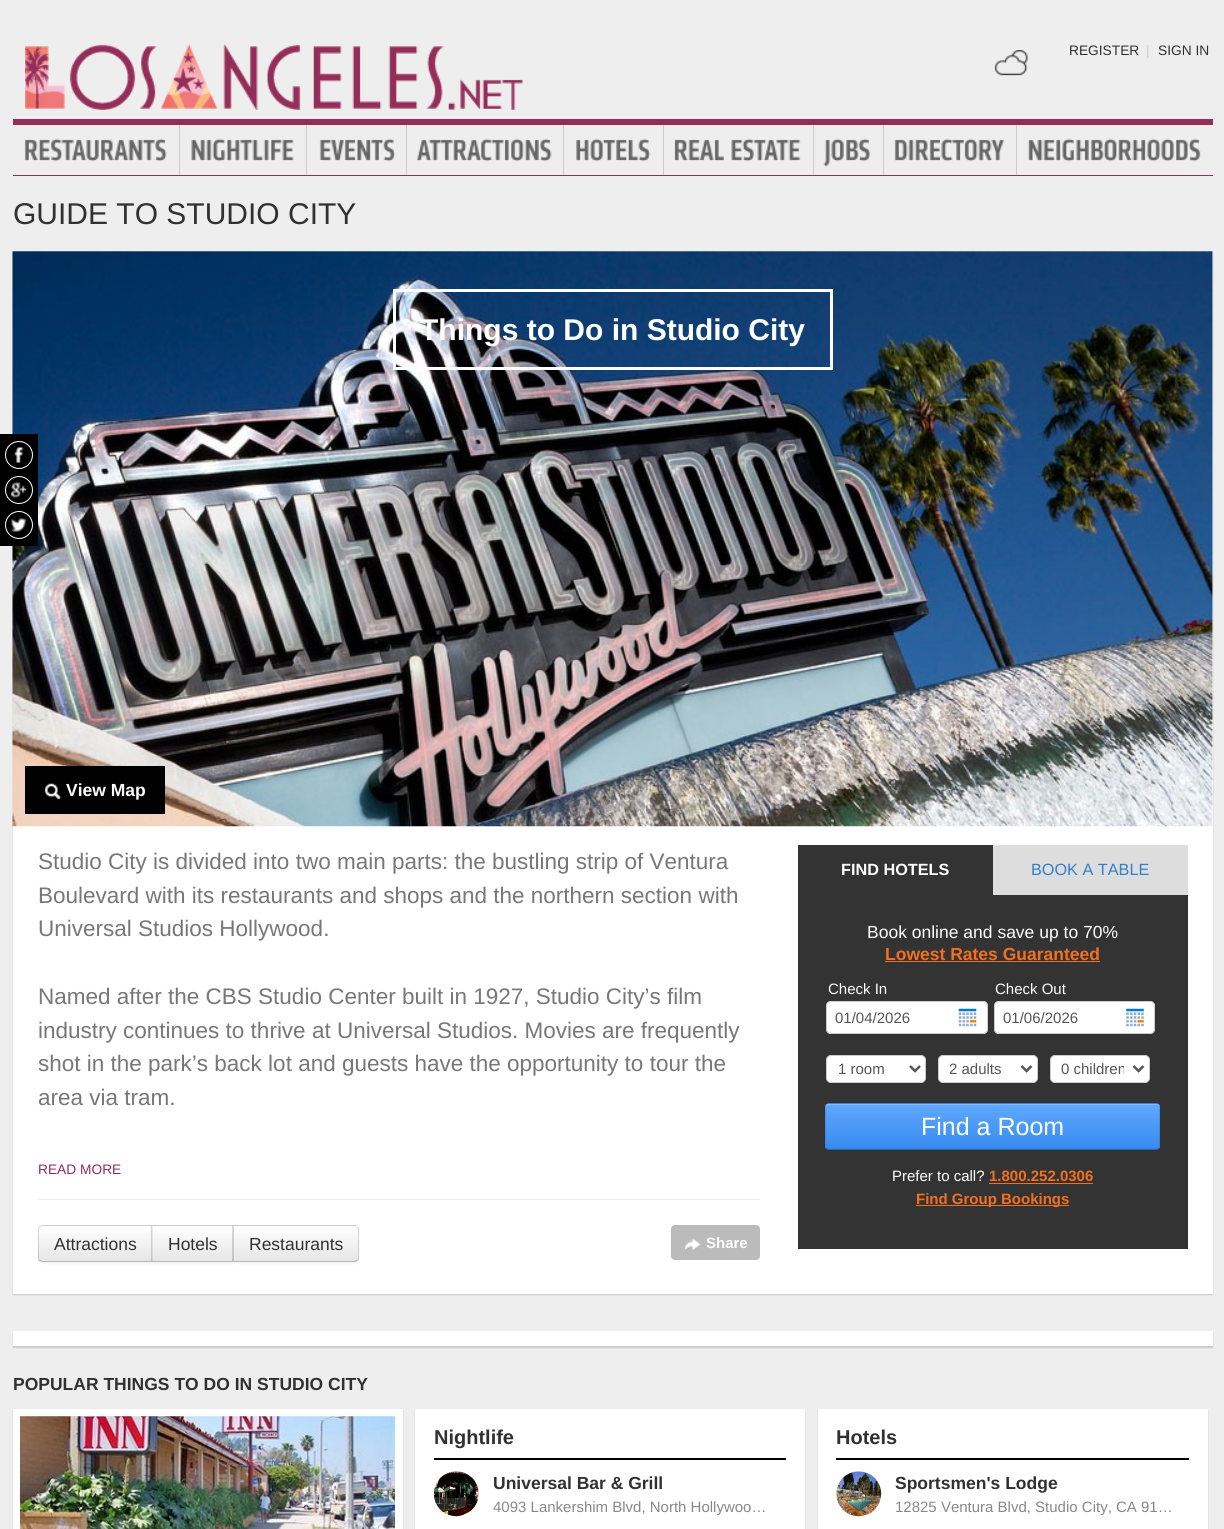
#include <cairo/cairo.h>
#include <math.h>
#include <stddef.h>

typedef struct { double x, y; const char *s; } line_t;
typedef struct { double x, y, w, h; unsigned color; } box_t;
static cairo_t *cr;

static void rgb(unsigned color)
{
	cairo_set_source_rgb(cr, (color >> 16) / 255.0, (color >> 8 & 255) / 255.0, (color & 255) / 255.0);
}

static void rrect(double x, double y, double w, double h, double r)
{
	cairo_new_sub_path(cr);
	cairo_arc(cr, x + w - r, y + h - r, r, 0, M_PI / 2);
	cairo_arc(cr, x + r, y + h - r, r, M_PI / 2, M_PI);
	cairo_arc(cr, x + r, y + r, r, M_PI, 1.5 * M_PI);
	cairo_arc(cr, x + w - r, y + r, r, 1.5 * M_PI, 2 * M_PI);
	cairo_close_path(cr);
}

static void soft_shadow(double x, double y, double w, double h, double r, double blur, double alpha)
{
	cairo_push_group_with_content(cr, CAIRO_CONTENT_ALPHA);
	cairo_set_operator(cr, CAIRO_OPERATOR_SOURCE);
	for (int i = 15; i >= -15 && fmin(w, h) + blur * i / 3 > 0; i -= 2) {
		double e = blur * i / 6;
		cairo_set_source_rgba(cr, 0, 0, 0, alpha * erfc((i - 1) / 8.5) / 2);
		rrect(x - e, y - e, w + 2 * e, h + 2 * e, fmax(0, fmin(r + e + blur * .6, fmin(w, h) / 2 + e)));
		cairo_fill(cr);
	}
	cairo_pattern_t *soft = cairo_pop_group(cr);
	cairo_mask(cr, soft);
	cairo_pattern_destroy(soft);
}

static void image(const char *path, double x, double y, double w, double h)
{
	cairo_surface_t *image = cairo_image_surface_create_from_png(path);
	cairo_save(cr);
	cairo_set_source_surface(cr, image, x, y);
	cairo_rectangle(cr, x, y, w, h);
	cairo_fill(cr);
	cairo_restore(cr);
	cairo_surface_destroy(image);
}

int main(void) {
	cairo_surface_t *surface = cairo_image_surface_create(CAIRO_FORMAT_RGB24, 1224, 1529);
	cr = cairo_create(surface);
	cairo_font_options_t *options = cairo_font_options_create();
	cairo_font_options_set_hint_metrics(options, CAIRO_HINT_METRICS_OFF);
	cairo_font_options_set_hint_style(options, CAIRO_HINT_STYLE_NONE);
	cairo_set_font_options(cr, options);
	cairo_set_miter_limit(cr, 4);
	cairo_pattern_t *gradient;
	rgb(0xeeeeee);
	cairo_paint(cr);
	image("img/1.png", 25, 43, 498, 67);
	image("img/2.png", 994, 50, 34, 26);
	{
		static const box_t items[] = {
			{13, 119, 1200, 6, 0x942d58},
			{13, 175, 1200, 1, 0x942d58},
			{179, 125, 1, 50, 0xcccccc},
		};
		for (size_t i = 0; i < sizeof items / sizeof *items; i++) {
			rgb(items[i].color);
			cairo_rectangle(cr, items[i].x, items[i].y, items[i].w, items[i].h);
			cairo_fill(cr);
		}
	}
	image("img/3.png", 24, 138, 143, 24);
	cairo_rectangle(cr, 306, 125, 1, 50);
	cairo_fill(cr);
	image("img/4.png", 191, 138, 103, 24);
	cairo_rectangle(cr, 406, 125, 1, 50);
	cairo_fill(cr);
	image("img/5.png", 319, 138, 77, 24);
	cairo_rectangle(cr, 563, 125, 1, 50);
	cairo_fill(cr);
	image("img/6.png", 416, 138, 136, 24);
	cairo_rectangle(cr, 663, 125, 1, 50);
	cairo_fill(cr);
	image("img/7.png", 576, 138, 75, 24);
	cairo_rectangle(cr, 813, 125, 1, 50);
	cairo_fill(cr);
	image("img/8.png", 674, 138, 127, 24);
	cairo_rectangle(cr, 883, 125, 1, 50);
	cairo_fill(cr);
	image("img/9.png", 823, 138, 48, 29);
	cairo_rectangle(cr, 1016, 125, 1, 50);
	cairo_fill(cr);
	image("img/10.png", 894, 138, 110, 24);
	image("img/11.png", 1028, 138, 173, 24);
	rgb(0xcbcbcb);
	soft_shadow(13, 253, 1200, 1042, 0, 0.5, 1);
	rgb(0xffffff);
	cairo_rectangle(cr, 13, 251, 1200, 1043);
	cairo_fill(cr);
	image("img/12.png", 12, 251, 1201, 576);
	cairo_rectangle(cr, 394.5, 290.5, 437, 78);
	cairo_set_line_width(cr, 3);
	cairo_stroke(cr);
	rgb(0x000000);
	cairo_rectangle(cr, 25, 766, 140, 48);
	cairo_fill(cr);
	image("img/13.png", 44, 783, 18, 17);
	image("img/14.png", 44, 1156, 636, 2);
	rgb(0xeeeeee);
	cairo_rectangle(cr, 38, 1199, 722, 1);
	cairo_fill(cr);
	rgb(0x000000);
	soft_shadow(38, 1226, 115, 38, 5, 1, 0.05);
	rgb(0xf5f5f5);
	cairo_new_path(cr);
	cairo_move_to(cr, 43, 1225);
	cairo_line_to(cr, 153, 1225);
	cairo_line_to(cr, 153, 1263);
	cairo_line_to(cr, 43, 1263);
	cairo_curve_to(cr, 40, 1263, 38, 1261, 38, 1258);
	cairo_line_to(cr, 38, 1230);
	cairo_curve_to(cr, 38, 1227, 40, 1225, 43, 1225);
	cairo_close_path(cr);
	cairo_fill(cr);
	cairo_save(cr);
	cairo_new_path(cr);
	cairo_move_to(cr, 43, 1225);
	cairo_line_to(cr, 153, 1225);
	cairo_line_to(cr, 153, 1263);
	cairo_line_to(cr, 43, 1263);
	cairo_curve_to(cr, 40, 1263, 38, 1261, 38, 1258);
	cairo_line_to(cr, 38, 1230);
	cairo_curve_to(cr, 38, 1227, 40, 1225, 43, 1225);
	cairo_close_path(cr);
	cairo_clip(cr);
	gradient = cairo_pattern_create_linear(95, 1226, 95, 1261);
	cairo_pattern_add_color_stop_rgba(gradient, 0, 1, 1, 1, 1);
	cairo_pattern_add_color_stop_rgba(gradient, 1, 0.902, 0.902, 0.902, 1);
	cairo_set_source(cr, gradient);
	cairo_pattern_destroy(gradient);
	cairo_rectangle(cr, 38, 1226, 113, 35);
	cairo_fill(cr);
	cairo_restore(cr);
	cairo_set_source_rgba(cr, 0, 0, 0, 0.15);
	cairo_new_path(cr);
	cairo_move_to(cr, 42, 1225);
	cairo_curve_to(cr, 41, 1225, 40, 1226, 39, 1227);
	cairo_line_to(cr, 40, 1227);
	cairo_line_to(cr, 42, 1226);
	cairo_line_to(cr, 151, 1226);
	cairo_line_to(cr, 152, 1225);
	cairo_close_path(cr);
	cairo_fill(cr);
	cairo_set_source_rgba(cr, 0, 0, 0, 0.25);
	cairo_new_path(cr);
	cairo_move_to(cr, 152, 1262);
	cairo_line_to(cr, 151, 1261);
	cairo_line_to(cr, 42, 1261);
	cairo_line_to(cr, 40, 1260);
	cairo_line_to(cr, 39, 1261);
	cairo_line_to(cr, 42, 1262);
	cairo_close_path(cr);
	cairo_fill(cr);
	cairo_set_source_rgba(cr, 0, 0, 0, 0.15);
	cairo_new_path(cr);
	cairo_move_to(cr, 39, 1226.5);
	cairo_curve_to(cr, 38.5, 1227.5, 38, 1228.5, 38, 1230);
	cairo_line_to(cr, 38, 1258);
	cairo_curve_to(cr, 38, 1259, 38.5, 1260, 39, 1261);
	cairo_line_to(cr, 40, 1260);
	cairo_curve_to(cr, 39, 1260, 39, 1259, 39, 1258);
	cairo_line_to(cr, 39, 1230);
	cairo_curve_to(cr, 39, 1229, 39, 1228, 40, 1227);
	cairo_close_path(cr);
	cairo_fill(cr);
	rgb(0x000000);
	soft_shadow(151, 1226, 83, 38, 0, 1, 0.05);
	rgb(0xf5f5f5);
	cairo_rectangle(cr, 151, 1225, 82, 38);
	cairo_fill(cr);
	gradient = cairo_pattern_create_linear(193, 1226, 193, 1261);
	cairo_pattern_add_color_stop_rgba(gradient, 0, 1, 1, 1, 1);
	cairo_pattern_add_color_stop_rgba(gradient, 1, 0.902, 0.902, 0.902, 1);
	cairo_set_source(cr, gradient);
	cairo_pattern_destroy(gradient);
	cairo_rectangle(cr, 151, 1226, 82, 35);
	cairo_fill(cr);
	rgb(0xd0d0d0);
	cairo_new_path(cr);
	cairo_move_to(cr, 151, 1225);
	cairo_line_to(cr, 234, 1225);
	cairo_line_to(cr, 232, 1226);
	cairo_line_to(cr, 152, 1226);
	cairo_close_path(cr);
	cairo_fill(cr);
	cairo_set_source_rgba(cr, 0, 0, 0, 0.15);
	cairo_new_path(cr);
	cairo_move_to(cr, 234, 1225);
	cairo_line_to(cr, 234, 1262.5);
	cairo_line_to(cr, 232.5, 1261);
	cairo_line_to(cr, 232.5, 1226);
	cairo_close_path(cr);
	cairo_fill(cr);
	cairo_set_source_rgba(cr, 0, 0, 0, 0.25);
	cairo_new_path(cr);
	cairo_move_to(cr, 234, 1262);
	cairo_line_to(cr, 151, 1262);
	cairo_line_to(cr, 152, 1261);
	cairo_line_to(cr, 232, 1261);
	cairo_close_path(cr);
	cairo_fill(cr);
	cairo_set_source_rgba(cr, 0, 0, 0, 0.15);
	cairo_new_path(cr);
	cairo_move_to(cr, 151, 1262.5);
	cairo_line_to(cr, 151, 1225);
	cairo_line_to(cr, 152.5, 1226);
	cairo_line_to(cr, 152.5, 1261);
	cairo_close_path(cr);
	cairo_fill(cr);
	rgb(0x000000);
	soft_shadow(233, 1226, 126, 38, 5, 1, 0.05);
	rgb(0xf5f5f5);
	cairo_new_path(cr);
	cairo_move_to(cr, 233, 1225);
	cairo_line_to(cr, 354, 1225);
	cairo_curve_to(cr, 357, 1225, 359, 1227, 359, 1230);
	cairo_line_to(cr, 359, 1258);
	cairo_curve_to(cr, 359, 1261, 357, 1263, 354, 1263);
	cairo_line_to(cr, 233, 1263);
	cairo_close_path(cr);
	cairo_fill(cr);
	cairo_save(cr);
	cairo_new_path(cr);
	cairo_move_to(cr, 233, 1225);
	cairo_line_to(cr, 354, 1225);
	cairo_curve_to(cr, 357, 1225, 359, 1227, 359, 1230);
	cairo_line_to(cr, 359, 1258);
	cairo_curve_to(cr, 359, 1261, 357, 1263, 354, 1263);
	cairo_line_to(cr, 233, 1263);
	cairo_close_path(cr);
	cairo_clip(cr);
	gradient = cairo_pattern_create_linear(296, 1226, 296, 1261);
	cairo_pattern_add_color_stop_rgba(gradient, 0, 1, 1, 1, 1);
	cairo_pattern_add_color_stop_rgba(gradient, 1, 0.902, 0.902, 0.902, 1);
	cairo_set_source(cr, gradient);
	cairo_pattern_destroy(gradient);
	cairo_rectangle(cr, 233, 1226, 126, 35);
	cairo_fill(cr);
	cairo_restore(cr);
	cairo_set_source_rgba(cr, 0, 0, 0, 0.15);
	cairo_new_path(cr);
	cairo_move_to(cr, 234, 1226);
	cairo_line_to(cr, 354, 1226);
	cairo_line_to(cr, 357, 1227);
	cairo_line_to(cr, 357, 1226);
	cairo_line_to(cr, 355, 1225);
	cairo_line_to(cr, 232, 1225);
	cairo_close_path(cr);
	cairo_fill(cr);
	cairo_new_path(cr);
	cairo_move_to(cr, 359, 1259);
	cairo_line_to(cr, 357.5, 1261);
	cairo_line_to(cr, 356.5, 1260.5);
	cairo_curve_to(cr, 357.5, 1260, 358, 1259, 358, 1258);
	cairo_line_to(cr, 358, 1230);
	cairo_curve_to(cr, 358, 1229, 357.5, 1228, 356.5, 1227);
	cairo_line_to(cr, 357.5, 1226.5);
	cairo_line_to(cr, 359, 1228.5);
	cairo_close_path(cr);
	cairo_fill(cr);
	cairo_set_source_rgba(cr, 0, 0, 0, 0.25);
	cairo_new_path(cr);
	cairo_move_to(cr, 357, 1261);
	cairo_curve_to(cr, 356, 1262, 355, 1262, 354, 1262);
	cairo_line_to(cr, 233, 1262);
	cairo_line_to(cr, 234, 1261);
	cairo_line_to(cr, 354, 1261);
	cairo_line_to(cr, 357, 1260);
	cairo_close_path(cr);
	cairo_fill(cr);
	cairo_set_source_rgba(cr, 0, 0, 0, 0.15);
	cairo_new_path(cr);
	cairo_move_to(cr, 233, 1262);
	cairo_line_to(cr, 232.5, 1262);
	cairo_line_to(cr, 232.5, 1225);
	cairo_line_to(cr, 234, 1226.5);
	cairo_line_to(cr, 234, 1261);
	cairo_close_path(cr);
	cairo_fill(cr);
	rgb(0xbbbbbb);
	rrect(671, 1225, 89, 35, 4);
	cairo_fill(cr);
	image("img/15.png", 685, 1238, 16, 13);
	{
		static const box_t items[] = {
			{798, 845, 390, 404, 0x333333},
			{993, 845, 195, 50, 0xdddddd},
			{885, 961, 215, 1, 0xf37020},
		};
		for (size_t i = 0; i < sizeof items / sizeof *items; i++) {
			rgb(items[i].color);
			cairo_rectangle(cr, items[i].x, items[i].y, items[i].w, items[i].h);
			cairo_fill(cr);
		}
	}
	rgb(0xffffff);
	rrect(826, 1001, 162, 33, 5);
	cairo_fill(cr);
	image("img/16.png", 958, 1008, 19, 19);
	rrect(826.5, 1001.5, 161, 32, 4.5);
	rgb(0xcccccc);
	cairo_set_line_width(cr, 1);
	cairo_stroke(cr);
	rgb(0xffffff);
	rrect(994, 1001, 161, 33, 5);
	cairo_fill(cr);
	image("img/17.png", 1126, 1008, 18, 19);
	rrect(994.5, 1001.5, 160, 32, 4.5);
	rgb(0xcccccc);
	cairo_stroke(cr);
	rgb(0xffffff);
	rrect(826.5, 1055.5, 99, 27, 4.5);
	cairo_fill_preserve(cr);
	rgb(0xcccccc);
	cairo_stroke(cr);
	cairo_new_path(cr);
	cairo_move_to(cr, 910, 1066);
	cairo_line_to(cr, 915, 1071);
	cairo_line_to(cr, 920, 1066);
	rgb(0x555555);
	cairo_set_line_width(cr, 2.5);
	cairo_stroke(cr);
	rgb(0xffffff);
	rrect(938.5, 1055.5, 99, 27, 4.5);
	cairo_fill_preserve(cr);
	rgb(0xcccccc);
	cairo_set_line_width(cr, 1);
	cairo_stroke(cr);
	cairo_new_path(cr);
	cairo_move_to(cr, 1021.5, 1066);
	cairo_line_to(cr, 1026.5, 1071);
	cairo_line_to(cr, 1031.5, 1066);
	rgb(0x555555);
	cairo_set_line_width(cr, 2.5);
	cairo_stroke(cr);
	rgb(0xffffff);
	rrect(1050.5, 1055.5, 99, 27, 4.5);
	cairo_fill_preserve(cr);
	rgb(0xcccccc);
	cairo_set_line_width(cr, 1);
	cairo_stroke(cr);
	cairo_new_path(cr);
	cairo_move_to(cr, 1133.5, 1066);
	cairo_line_to(cr, 1138.5, 1071);
	cairo_line_to(cr, 1143.5, 1066);
	rgb(0x555555);
	cairo_set_line_width(cr, 2.5);
	cairo_stroke(cr);
	rgb(0x378bef);
	rrect(825, 1103, 335, 47, 4);
	cairo_fill(cr);
	cairo_save(cr);
	rrect(825, 1103, 335, 47, 4);
	cairo_clip(cr);
	gradient = cairo_pattern_create_linear(993, 1104, 993, 1149);
	cairo_pattern_add_color_stop_rgba(gradient, 0, 0.373, 0.659, 1, 1);
	cairo_pattern_add_color_stop_rgba(gradient, 1, 0.216, 0.545, 0.937, 1);
	cairo_set_source(cr, gradient);
	cairo_pattern_destroy(gradient);
	cairo_rectangle(cr, 825, 1104, 335, 45);
	cairo_fill(cr);
	cairo_restore(cr);
	rgb(0x7fb9ff);
	cairo_new_path(cr);
	cairo_move_to(cr, 829, 1105);
	cairo_line_to(cr, 1156, 1105);
	cairo_curve_to(cr, 1158, 1105, 1159, 1106, 1159, 1108);
	cairo_line_to(cr, 1159, 1105);
	cairo_line_to(cr, 1157, 1104);
	cairo_line_to(cr, 828, 1104);
	cairo_curve_to(cr, 826, 1104, 826, 1106, 826, 1108);
	cairo_curve_to(cr, 826, 1106, 827, 1105, 829, 1105);
	cairo_close_path(cr);
	cairo_fill(cr);
	cairo_new_path(cr);
	cairo_move_to(cr, 1158.5, 1148.5);
	cairo_line_to(cr, 1156, 1149.5);
	cairo_line_to(cr, 829, 1149.5);
	cairo_line_to(cr, 826.5, 1148.5);
	cairo_set_source_rgba(cr, 0, 0, 0, 0.25);
	cairo_set_line_width(cr, 1.2);
	cairo_stroke(cr);
	cairo_new_path(cr);
	cairo_move_to(cr, 826.5, 1148.5);
	cairo_line_to(cr, 825.5, 1146);
	cairo_line_to(cr, 825.5, 1106);
	cairo_line_to(cr, 826.5, 1104);
	cairo_line_to(cr, 829, 1103);
	cairo_line_to(cr, 1156, 1103);
	cairo_line_to(cr, 1158.5, 1104);
	cairo_line_to(cr, 1159.5, 1106);
	cairo_line_to(cr, 1159.5, 1146);
	cairo_line_to(cr, 1158.5, 1148.5);
	cairo_set_source_rgba(cr, 0, 0, 0, 0.1);
	cairo_stroke(cr);
	rgb(0xf37020);
	cairo_rectangle(cr, 989, 1183, 104, 1);
	cairo_fill(cr);
	cairo_rectangle(cr, 916, 1205, 153, 1);
	cairo_fill(cr);
	rgb(0xcbcbcb);
	soft_shadow(13, 1333, 1200, 15, 0, 0.5, 1);
	rgb(0xffffff);
	cairo_rectangle(cr, 13, 1331, 1200, 15);
	cairo_fill(cr);
	rgb(0xcbcbcb);
	soft_shadow(13, 1410, 390, 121, 0, 0.5, 1);
	rgb(0xffffff);
	cairo_rectangle(cr, 13, 1409, 390, 120);
	cairo_fill(cr);
	image("img/18.png", 20, 1416, 375, 1);
	image("img/19.png", 20, 1416, 375, 113);
	rgb(0xcbcbcb);
	soft_shadow(415, 1410, 390, 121, 0, 0.5, 1);
	rgb(0xffffff);
	cairo_rectangle(cr, 415, 1409, 390, 120);
	cairo_fill(cr);
	rgb(0x000000);
	cairo_rectangle(cr, 434, 1458, 352, 2);
	cairo_fill(cr);
	image("img/20.png", 433, 1471, 46, 46);
	rgb(0xcbcbcb);
	soft_shadow(818, 1410, 390, 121, 0, 0.5, 1);
	rgb(0xffffff);
	cairo_rectangle(cr, 818, 1409, 390, 120);
	cairo_fill(cr);
	rgb(0x000000);
	cairo_rectangle(cr, 836, 1458, 353, 2);
	cairo_fill(cr);
	image("img/21.png", 836, 1471, 46, 46);
	cairo_rectangle(cr, 0, 434, 38, 112);
	cairo_fill(cr);
	cairo_arc(cr, 19, 455, 13.5, 0, 2 * M_PI);
	rgb(0xffffff);
	cairo_set_line_width(cr, 1);
	cairo_stroke(cr);
	image("img/22.png", 14, 447, 10, 16);
	cairo_arc(cr, 19, 490, 13.5, 0, 2 * M_PI);
	cairo_stroke(cr);
	image("img/23.png", 11, 482, 16, 16);
	cairo_arc(cr, 19, 525, 13.5, 0, 2 * M_PI);
	cairo_stroke(cr);
	image("img/24.png", 11, 518, 16, 14);
	cairo_select_font_face(cr, "Liberation Sans", CAIRO_FONT_SLANT_NORMAL, CAIRO_FONT_WEIGHT_NORMAL);
	cairo_set_font_size(cr, 13.75);
	rgb(0x313131);
	cairo_move_to(cr, 1069, 55);
	cairo_show_text(cr, "REGISTER");
	rgb(0xcccccc);
	cairo_move_to(cr, 1146, 55);
	cairo_show_text(cr, "|");
	rgb(0x313131);
	cairo_move_to(cr, 1158, 55);
	cairo_show_text(cr, "SIGN IN");
	cairo_set_font_size(cr, 30);
	cairo_move_to(cr, 13, 224);
	cairo_show_text(cr, "GUIDE TO STUDIO CITY");
	cairo_select_font_face(cr, "Liberation Sans", CAIRO_FONT_SLANT_NORMAL, CAIRO_FONT_WEIGHT_BOLD);
	rgb(0xffffff);
	cairo_move_to(cr, 420, 340);
	cairo_show_text(cr, "Things to Do in Studio City");
	cairo_set_font_size(cr, 17.5);
	cairo_move_to(cr, 66, 796);
	cairo_show_text(cr, "View Map");
	cairo_select_font_face(cr, "Liberation Sans", CAIRO_FONT_SLANT_NORMAL, CAIRO_FONT_WEIGHT_NORMAL);
	cairo_set_font_size(cr, 22.5);
	rgb(0x777777);
	{
		static const line_t items[] = {
			{38, 869, "Studio City is divided into two main parts: the bustling strip of Ventura"},
			{38, 903, "Boulevard with its restaurants and shops and the northern section with"},
			{38, 936, "Universal Studios Hollywood."},
			{38, 1004, "Named after the CBS Studio Center built in 1927, Studio City’s film"},
			{38, 1038, "industry continues to thrive at Universal Studios. Movies are frequently"},
			{38, 1071, "shot in the park’s back lot and guests have the opportunity to tour the"},
			{38, 1105, "area via tram."},
		};
		for (size_t i = 0; i < sizeof items / sizeof *items; i++) {
			cairo_move_to(cr, items[i].x, items[i].y);
			cairo_show_text(cr, items[i].s);
		}
	}
	cairo_set_font_size(cr, 13.75);
	rgb(0x942d58);
	cairo_move_to(cr, 38, 1174);
	cairo_show_text(cr, "READ MORE");
	cairo_set_font_size(cr, 17.5);
	rgb(0x313131);
	{
		static const line_t items[] = {
			{54, 1250, "Attractions"},
			{168, 1250, "Hotels"},
			{249, 1250, "Restaurants"},
		};
		for (size_t i = 0; i < sizeof items / sizeof *items; i++) {
			cairo_move_to(cr, items[i].x, items[i].y);
			cairo_show_text(cr, items[i].s);
		}
	}
	cairo_select_font_face(cr, "Liberation Sans", CAIRO_FONT_SLANT_NORMAL, CAIRO_FONT_WEIGHT_BOLD);
	cairo_set_font_size(cr, 15);
	rgb(0xffffff);
	cairo_move_to(cr, 706, 1248);
	cairo_show_text(cr, "Share");
	cairo_set_font_size(cr, 16.25);
	cairo_move_to(cr, 841, 875);
	cairo_show_text(cr, "FIND HOTELS");
	cairo_select_font_face(cr, "Liberation Sans", CAIRO_FONT_SLANT_NORMAL, CAIRO_FONT_WEIGHT_NORMAL);
	rgb(0x3080cb);
	cairo_move_to(cr, 1031, 875);
	cairo_show_text(cr, "BOOK A TABLE");
	cairo_set_font_size(cr, 17.5);
	rgb(0xffffff);
	cairo_move_to(cr, 867, 938);
	cairo_show_text(cr, "Book online and save up to 70%");
	cairo_select_font_face(cr, "Liberation Sans", CAIRO_FONT_SLANT_NORMAL, CAIRO_FONT_WEIGHT_BOLD);
	rgb(0xf37020);
	cairo_move_to(cr, 885, 960);
	cairo_show_text(cr, "Lowest Rates Guaranteed");
	cairo_select_font_face(cr, "Liberation Sans", CAIRO_FONT_SLANT_NORMAL, CAIRO_FONT_WEIGHT_NORMAL);
	cairo_set_font_size(cr, 15);
	rgb(0xffffff);
	cairo_move_to(cr, 828, 994);
	cairo_show_text(cr, "Check In");
	cairo_move_to(cr, 995, 994);
	cairo_show_text(cr, "Check Out");
	rgb(0x555555);
	{
		static const line_t items[] = {
			{835, 1023, "01/04/2026"},
			{1003, 1023, "01/06/2026"},
			{838, 1074, "1 room"},
			{949, 1074, "2 adults"},
		};
		for (size_t i = 0; i < sizeof items / sizeof *items; i++) {
			cairo_move_to(cr, items[i].x, items[i].y);
			cairo_show_text(cr, items[i].s);
		}
	}
	cairo_save(cr);
	cairo_rectangle(cr, 1061, 1059, 63, 20);
	cairo_clip(cr);
	cairo_move_to(cr, 1061, 1074);
	cairo_show_text(cr, "0 children");
	cairo_restore(cr);
	cairo_set_font_size(cr, 25);
	rgb(0xffffff);
	cairo_move_to(cr, 921, 1135);
	cairo_show_text(cr, "Find a Room");
	cairo_set_font_size(cr, 15);
	cairo_move_to(cr, 892, 1181);
	cairo_show_text(cr, "Prefer to call?");
	cairo_select_font_face(cr, "Liberation Sans", CAIRO_FONT_SLANT_NORMAL, CAIRO_FONT_WEIGHT_BOLD);
	rgb(0xf37020);
	cairo_move_to(cr, 989, 1181);
	cairo_show_text(cr, "1.800.252.0306");
	cairo_move_to(cr, 916, 1204);
	cairo_show_text(cr, "Find Group Bookings");
	cairo_set_font_size(cr, 17.5);
	rgb(0x313131);
	cairo_move_to(cr, 13, 1390);
	cairo_show_text(cr, "POPULAR THINGS TO DO IN STUDIO CITY");
	cairo_set_font_size(cr, 20);
	cairo_move_to(cr, 434, 1444);
	cairo_show_text(cr, "Nightlife");
	cairo_set_font_size(cr, 17.5);
	cairo_move_to(cr, 493, 1489);
	cairo_show_text(cr, "Universal Bar & Grill");
	cairo_select_font_face(cr, "Liberation Sans", CAIRO_FONT_SLANT_NORMAL, CAIRO_FONT_WEIGHT_NORMAL);
	cairo_set_font_size(cr, 15);
	rgb(0x888888);
	cairo_move_to(cr, 493, 1512);
	cairo_show_text(cr, "4093 Lankershim Blvd, North Hollywoo…");
	cairo_select_font_face(cr, "Liberation Sans", CAIRO_FONT_SLANT_NORMAL, CAIRO_FONT_WEIGHT_BOLD);
	cairo_set_font_size(cr, 20);
	rgb(0x313131);
	cairo_move_to(cr, 836, 1444);
	cairo_show_text(cr, "Hotels");
	cairo_set_font_size(cr, 17.5);
	cairo_move_to(cr, 895, 1489);
	cairo_show_text(cr, "Sportsmen's Lodge");
	cairo_select_font_face(cr, "Liberation Sans", CAIRO_FONT_SLANT_NORMAL, CAIRO_FONT_WEIGHT_NORMAL);
	cairo_set_font_size(cr, 15);
	rgb(0x888888);
	cairo_move_to(cr, 895, 1512);
	cairo_show_text(cr, "12825 Ventura Blvd, Studio City, CA 91…");
	cairo_surface_write_to_png(surface, "page.png");
	cairo_font_options_destroy(options);
	cairo_destroy(cr);
	cairo_surface_destroy(surface);
	return 0;
}
